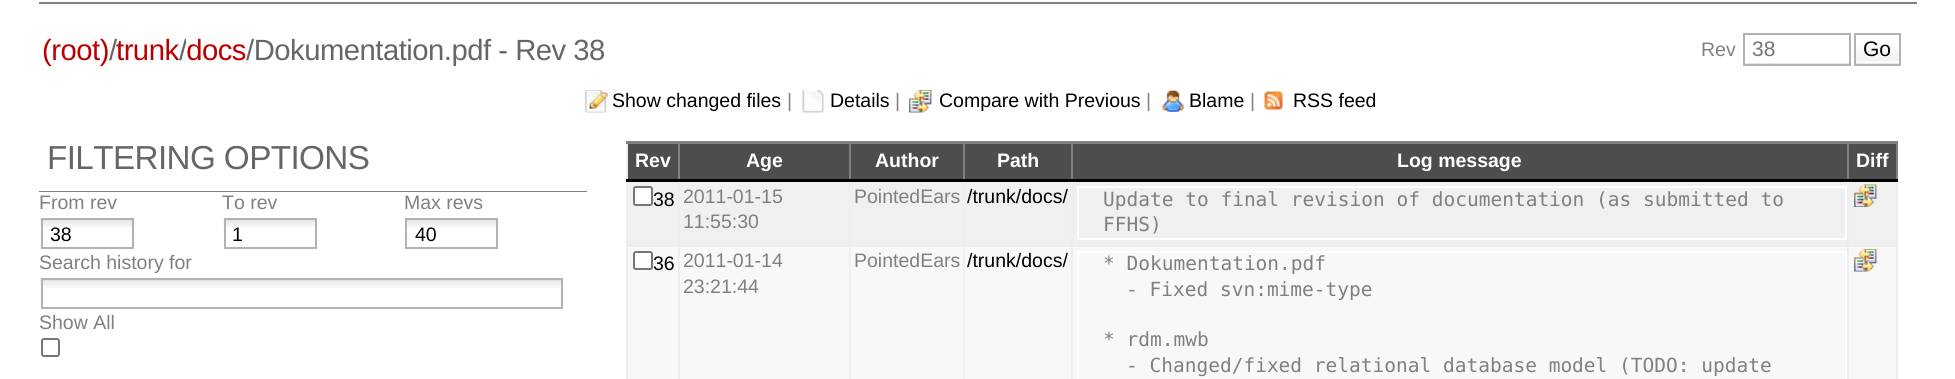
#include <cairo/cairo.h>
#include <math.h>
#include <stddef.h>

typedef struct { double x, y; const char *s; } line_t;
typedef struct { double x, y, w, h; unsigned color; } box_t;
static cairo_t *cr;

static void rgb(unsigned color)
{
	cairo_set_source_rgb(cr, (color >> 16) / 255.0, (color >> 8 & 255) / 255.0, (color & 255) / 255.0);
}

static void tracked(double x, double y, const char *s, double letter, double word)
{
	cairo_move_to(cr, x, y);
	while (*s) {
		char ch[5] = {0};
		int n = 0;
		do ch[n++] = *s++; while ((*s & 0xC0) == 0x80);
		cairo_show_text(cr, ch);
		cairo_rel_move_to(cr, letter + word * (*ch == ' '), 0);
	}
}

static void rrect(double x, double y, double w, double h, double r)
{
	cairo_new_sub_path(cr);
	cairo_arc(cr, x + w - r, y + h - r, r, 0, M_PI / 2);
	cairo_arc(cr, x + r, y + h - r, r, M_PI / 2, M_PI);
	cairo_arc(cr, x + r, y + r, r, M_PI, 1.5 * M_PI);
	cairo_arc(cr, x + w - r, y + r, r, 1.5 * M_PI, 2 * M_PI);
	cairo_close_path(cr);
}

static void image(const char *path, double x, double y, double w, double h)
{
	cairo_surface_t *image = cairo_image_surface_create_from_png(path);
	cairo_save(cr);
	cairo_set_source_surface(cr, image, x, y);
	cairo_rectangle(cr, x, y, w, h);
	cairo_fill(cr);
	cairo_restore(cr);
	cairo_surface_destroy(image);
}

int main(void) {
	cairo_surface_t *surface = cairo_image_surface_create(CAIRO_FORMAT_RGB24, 1955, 379);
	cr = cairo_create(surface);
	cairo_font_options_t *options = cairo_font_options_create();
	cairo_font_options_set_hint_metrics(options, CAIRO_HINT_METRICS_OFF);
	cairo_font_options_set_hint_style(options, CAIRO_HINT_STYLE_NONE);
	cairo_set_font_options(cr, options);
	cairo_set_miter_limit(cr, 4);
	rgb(0xffffff);
	cairo_paint(cr);
	rgb(0x808080);
	cairo_rectangle(cr, 39, 2, 1878, 2);
	cairo_fill(cr);
	rgb(0xe6e6e6);
	cairo_rectangle(cr, 1743, 63, 108, 1);
	cairo_fill(cr);
	cairo_rectangle(cr, 1744, 34, 106, 31);
	rgb(0xb2b2b2);
	cairo_stroke(cr);
	image("img/1.png", 1856, 47, 43, 17);
	cairo_rectangle(cr, 1855, 34, 45, 31);
	cairo_stroke(cr);
	image("img/2.png", 584, 90, 24, 23);
	image("img/3.png", 802, 90, 22, 23);
	image("img/4.png", 909, 90, 23, 23);
	image("img/5.png", 1162, 90, 22, 22);
	image("img/6.png", 1264, 91, 19, 19);
	rgb(0x808080);
	cairo_rectangle(cr, 39, 191, 548, 1);
	cairo_fill(cr);
	image("img/7.png", 40, 219, 92, 9);
	cairo_rectangle(cr, 42, 219, 91, 29);
	rgb(0xb2b2b2);
	cairo_stroke(cr);
	image("img/7.png", 223, 219, 92, 9);
	cairo_rectangle(cr, 225, 219, 91, 29);
	cairo_stroke(cr);
	image("img/8.png", 407, 220, 89, 8);
	cairo_rectangle(cr, 406, 219, 91, 29);
	cairo_stroke(cr);
	image("img/9.png", 40, 279, 521, 9);
	cairo_rectangle(cr, 42, 279, 520, 29);
	cairo_stroke(cr);
	rrect(42, 339, 17, 17, 2);
	rgb(0x767676);
	cairo_stroke(cr);
	{
		static const box_t items[] = {
			{628, 144, 1268, 35, 0x4d4d4d},
			{1847, 245, 51, 2, 0xeeeeee},
			{1847, 245, 2, 134, 0xeeeeee},
			{1071, 245, 777, 2, 0xeeeeee},
			{1071, 245, 2, 134, 0xeeeeee},
			{963, 245, 110, 2, 0xeeeeee},
			{963, 245, 2, 134, 0xeeeeee},
			{849, 245, 116, 2, 0xeeeeee},
			{849, 245, 2, 134, 0xeeeeee},
			{678, 245, 173, 2, 0xeeeeee},
			{678, 245, 2, 134, 0xeeeeee},
			{626, 245, 54, 2, 0xeeeeee},
			{678, 180, 2, 66, 0xeeeeee},
			{678, 143, 2, 39, 0x808080},
			{849, 180, 2, 66, 0xeeeeee},
			{849, 143, 2, 39, 0x808080},
			{963, 180, 2, 66, 0xeeeeee},
			{963, 143, 2, 39, 0x808080},
			{1071, 180, 2, 66, 0xeeeeee},
			{1071, 143, 2, 39, 0x808080},
			{1847, 180, 2, 66, 0xeeeeee},
			{1847, 143, 2, 39, 0x808080},
			{1896, 180, 2, 199, 0xeeeeee},
			{1896, 143, 2, 39, 0x808080},
			{626, 143, 2, 236, 0xeeeeee},
			{626, 141, 1272, 3, 0x808080},
			{626, 179, 1272, 3, 0x000000},
			{628, 182, 50, 63, 0xf0f0f0},
		};
		for (size_t i = 0; i < sizeof items / sizeof *items; i++) {
			rgb(items[i].color);
			cairo_rectangle(cr, items[i].x, items[i].y, items[i].w, items[i].h);
			cairo_fill(cr);
		}
	}
	rgb(0xffffff);
	rrect(634, 187, 18, 18, 2);
	cairo_fill_preserve(cr);
	rgb(0x767676);
	cairo_stroke(cr);
	{
		static const box_t items[] = {
			{680, 182, 169, 63, 0xf0f0f0},
			{851, 182, 112, 63, 0xf0f0f0},
			{965, 182, 106, 63, 0xf0f0f0},
			{1073, 182, 774, 63, 0xf0f0f0},
		};
		for (size_t i = 0; i < sizeof items / sizeof *items; i++) {
			rgb(items[i].color);
			cairo_rectangle(cr, items[i].x, items[i].y, items[i].w, items[i].h);
			cairo_fill(cr);
		}
	}
	cairo_rectangle(cr, 1078, 187, 768, 52);
	rgb(0xffffff);
	cairo_stroke(cr);
	rgb(0xf0f0f0);
	cairo_rectangle(cr, 1849, 182, 47, 63);
	cairo_fill(cr);
	image("img/10.png", 1854, 184, 23, 23);
	rgb(0xf8f8f8);
	cairo_rectangle(cr, 628, 247, 50, 132);
	cairo_fill(cr);
	rgb(0xffffff);
	rrect(634, 252, 18, 17, 2);
	cairo_fill_preserve(cr);
	rgb(0x767676);
	cairo_stroke(cr);
	{
		static const box_t items[] = {
			{680, 247, 169, 132, 0xf8f8f8},
			{851, 247, 112, 132, 0xf8f8f8},
			{965, 247, 106, 132, 0xf8f8f8},
			{1073, 247, 774, 132, 0xf8f8f8},
		};
		for (size_t i = 0; i < sizeof items / sizeof *items; i++) {
			rgb(items[i].color);
			cairo_rectangle(cr, items[i].x, items[i].y, items[i].w, items[i].h);
			cairo_fill(cr);
		}
	}
	cairo_rectangle(cr, 1078, 252, 768, 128);
	rgb(0xffffff);
	cairo_stroke(cr);
	rgb(0xf8f8f8);
	cairo_rectangle(cr, 1849, 247, 47, 132);
	cairo_fill(cr);
	image("img/11.png", 1854, 249, 23, 23);
	cairo_select_font_face(cr, "Liberation Sans", CAIRO_FONT_SLANT_NORMAL, CAIRO_FONT_WEIGHT_NORMAL);
	cairo_set_font_size(cr, 29.25);
	rgb(0xbb0000);
	tracked(42, 60, "(root)", -0.5, 0);
	rgb(0x666666);
	tracked(109, 60, "/", -0.5, 0);
	rgb(0xbb0000);
	tracked(116, 60, "trunk docs", -0.5, 0);
	rgb(0x666666);
	tracked(179, 60, "/", -0.5, 0);
	rgb(0xffffff);
	cairo_rectangle(cr, 186, 38, 1, 4);
	cairo_fill(cr);
	rgb(0x666666);
	tracked(246, 60, "/Dokumentation.pdf - Rev 38", -0.5, 0);
	cairo_set_font_size(cr, 19.5);
	rgb(0x808080);
	cairo_move_to(cr, 1701, 56);
	cairo_show_text(cr, "Rev");
	cairo_set_font_size(cr, 21);
	rgb(0x757575);
	cairo_move_to(cr, 1752, 56);
	cairo_show_text(cr, "38");
	rgb(0x000000);
	cairo_move_to(cr, 1863, 56);
	cairo_show_text(cr, "Go");
	cairo_set_font_size(cr, 19.5);
	cairo_move_to(cr, 612, 107);
	cairo_show_text(cr, "Show changed files");
	rgb(0x808080);
	cairo_move_to(cr, 787, 107);
	cairo_show_text(cr, "|");
	rgb(0x000000);
	cairo_move_to(cr, 830, 107);
	cairo_show_text(cr, "Details");
	rgb(0x808080);
	cairo_move_to(cr, 895, 107);
	cairo_show_text(cr, "|");
	rgb(0x000000);
	cairo_move_to(cr, 939, 107);
	cairo_show_text(cr, "Compare with Previous");
	rgb(0x808080);
	cairo_move_to(cr, 1146, 107);
	cairo_show_text(cr, "|");
	rgb(0x000000);
	cairo_move_to(cr, 1189, 107);
	cairo_show_text(cr, "Blame");
	rgb(0x808080);
	cairo_move_to(cr, 1250, 107);
	cairo_show_text(cr, "|");
	rgb(0x000000);
	cairo_move_to(cr, 1293, 107);
	cairo_show_text(cr, "RSS feed");
	cairo_set_font_size(cr, 33.25);
	rgb(0x666666);
	tracked(47, 169, "FILTERING OPTIONS", -0.6, 0);
	cairo_set_font_size(cr, 19.5);
	rgb(0x808080);
	{
		static const line_t items[] = {
			{39, 209, "From rev"},
			{222, 209, "To rev"},
			{404, 209, "Max revs"},
		};
		for (size_t i = 0; i < sizeof items / sizeof *items; i++) {
			cairo_move_to(cr, items[i].x, items[i].y);
			cairo_show_text(cr, items[i].s);
		}
	}
	rgb(0x000000);
	{
		static const line_t items[] = {
			{50, 241, "38"},
			{232, 241, "1"},
			{415, 241, "40"},
		};
		for (size_t i = 0; i < sizeof items / sizeof *items; i++) {
			cairo_move_to(cr, items[i].x, items[i].y);
			cairo_show_text(cr, items[i].s);
		}
	}
	rgb(0x808080);
	cairo_move_to(cr, 39, 269);
	cairo_show_text(cr, "Search history for");
	cairo_move_to(cr, 39, 329);
	cairo_show_text(cr, "Show All");
	cairo_select_font_face(cr, "Liberation Sans", CAIRO_FONT_SLANT_NORMAL, CAIRO_FONT_WEIGHT_BOLD);
	rgb(0xffffff);
	{
		static const line_t items[] = {
			{635, 167, "Rev"},
			{746, 167, "Age"},
			{875, 167, "Author"},
			{997, 167, "Path"},
			{1397, 167, "Log message"},
			{1856, 167, "Diff"},
		};
		for (size_t i = 0; i < sizeof items / sizeof *items; i++) {
			cairo_move_to(cr, items[i].x, items[i].y);
			cairo_show_text(cr, items[i].s);
		}
	}
	cairo_select_font_face(cr, "Liberation Sans", CAIRO_FONT_SLANT_NORMAL, CAIRO_FONT_WEIGHT_NORMAL);
	rgb(0x000000);
	cairo_move_to(cr, 653, 206);
	cairo_show_text(cr, "38");
	rgb(0x808080);
	{
		static const line_t items[] = {
			{683, 203, "2011-01-15"},
			{683, 228, "11:55:30"},
			{854, 203, "PointedEars"},
		};
		for (size_t i = 0; i < sizeof items / sizeof *items; i++) {
			cairo_move_to(cr, items[i].x, items[i].y);
			cairo_show_text(cr, items[i].s);
		}
	}
	rgb(0x000000);
	cairo_move_to(cr, 967, 203);
	cairo_show_text(cr, "/trunk/docs/");
	cairo_select_font_face(cr, "DejaVu Sans Mono", CAIRO_FONT_SLANT_NORMAL, CAIRO_FONT_WEIGHT_NORMAL);
	rgb(0x808080);
	cairo_move_to(cr, 1103, 206);
	cairo_show_text(cr, "Update to final revision of documentation (as submitted to");
	cairo_move_to(cr, 1103, 231);
	cairo_show_text(cr, "FFHS)");
	cairo_select_font_face(cr, "Liberation Sans", CAIRO_FONT_SLANT_NORMAL, CAIRO_FONT_WEIGHT_NORMAL);
	rgb(0x000000);
	cairo_move_to(cr, 653, 270);
	cairo_show_text(cr, "36");
	rgb(0x808080);
	{
		static const line_t items[] = {
			{683, 267, "2011-01-14"},
			{683, 293, "23:21:44"},
			{854, 267, "PointedEars"},
		};
		for (size_t i = 0; i < sizeof items / sizeof *items; i++) {
			cairo_move_to(cr, items[i].x, items[i].y);
			cairo_show_text(cr, items[i].s);
		}
	}
	rgb(0x000000);
	cairo_move_to(cr, 967, 267);
	cairo_show_text(cr, "/trunk/docs/");
	cairo_select_font_face(cr, "DejaVu Sans Mono", CAIRO_FONT_SLANT_NORMAL, CAIRO_FONT_WEIGHT_NORMAL);
	rgb(0x808080);
	{
		static const line_t items[] = {
			{1103, 270, "* Dokumentation.pdf"},
			{1126, 296, "- Fixed svn:mime-type"},
			{1103, 346, "* rdm.mwb"},
			{1126, 372, "- Changed/fixed relational database model (TODO: update"},
		};
		for (size_t i = 0; i < sizeof items / sizeof *items; i++) {
			cairo_move_to(cr, items[i].x, items[i].y);
			cairo_show_text(cr, items[i].s);
		}
	}
	cairo_surface_write_to_png(surface, "page.png");
	cairo_font_options_destroy(options);
	cairo_destroy(cr);
	cairo_surface_destroy(surface);
	return 0;
}
